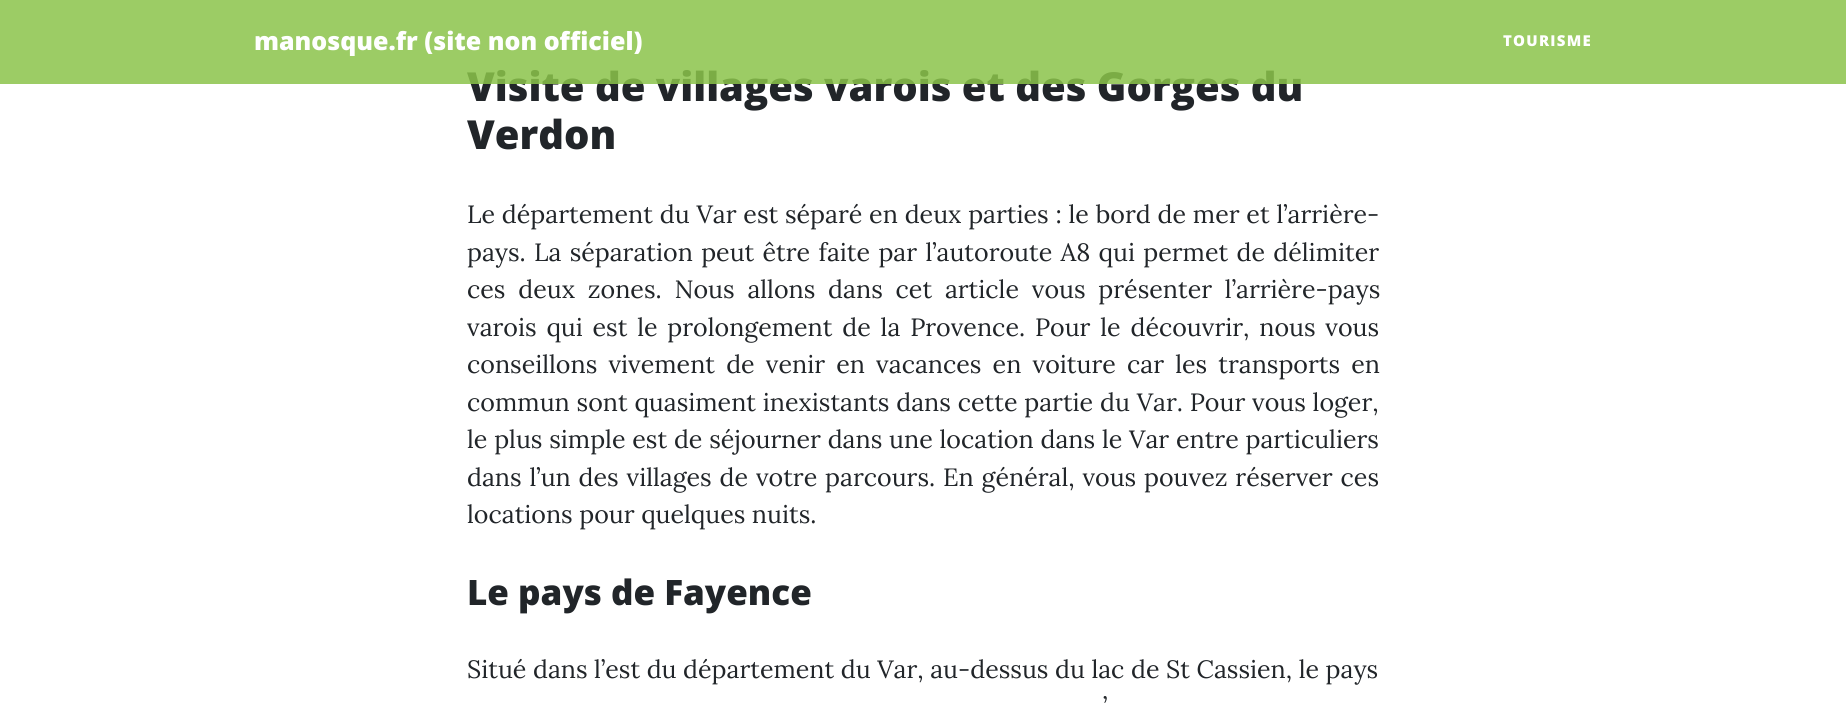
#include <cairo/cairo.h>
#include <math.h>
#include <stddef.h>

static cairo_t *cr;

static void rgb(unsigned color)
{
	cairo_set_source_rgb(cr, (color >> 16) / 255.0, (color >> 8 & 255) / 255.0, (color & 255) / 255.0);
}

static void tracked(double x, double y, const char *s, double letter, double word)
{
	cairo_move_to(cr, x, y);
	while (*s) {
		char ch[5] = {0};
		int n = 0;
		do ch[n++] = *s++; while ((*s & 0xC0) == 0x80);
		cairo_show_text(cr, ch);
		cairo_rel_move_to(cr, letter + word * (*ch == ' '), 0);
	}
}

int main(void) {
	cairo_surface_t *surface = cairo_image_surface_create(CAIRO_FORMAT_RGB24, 1846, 703);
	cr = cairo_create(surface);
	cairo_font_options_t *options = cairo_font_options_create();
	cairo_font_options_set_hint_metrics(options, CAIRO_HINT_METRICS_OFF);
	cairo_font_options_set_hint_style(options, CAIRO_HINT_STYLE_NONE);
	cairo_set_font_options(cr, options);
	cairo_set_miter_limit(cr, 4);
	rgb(0xffffff);
	cairo_paint(cr);
	cairo_select_font_face(cr, "Open Sans ExtraBold", CAIRO_FONT_SLANT_NORMAL, CAIRO_FONT_WEIGHT_NORMAL);
	cairo_set_font_size(cr, 40);
	rgb(0x212529);
	cairo_move_to(cr, 467, 101);
	cairo_show_text(cr, "Visite de villages varois et des Gorges du");
	cairo_set_source_rgba(cr, 0.545, 0.765, 0.29, 0.85);
	cairo_rectangle(cr, 0, 0, 1846, 84);
	cairo_fill(cr);
	cairo_set_font_size(cr, 15);
	rgb(0xffffff);
	tracked(1503, 46, "TOURISME", 1.25, 0);
	cairo_set_font_size(cr, 25);
	cairo_move_to(cr, 254, 50);
	cairo_show_text(cr, "manosque.fr (site non officiel)");
	cairo_set_font_size(cr, 40);
	rgb(0x212529);
	cairo_move_to(cr, 467, 149);
	cairo_show_text(cr, "Verdon");
	cairo_select_font_face(cr, "Lora", CAIRO_FONT_SLANT_NORMAL, CAIRO_FONT_WEIGHT_NORMAL);
	cairo_set_font_size(cr, 25);
	tracked(467, 223, "Le département du Var est séparé en deux parties : le bord de mer et l’arrière-", 0, 0.25);
	cairo_move_to(cr, 467, 261);
	cairo_show_text(cr, "pays.");
	tracked(534, 261, "La séparation peut être faite par l’autoroute A8 qui permet de délimiter", 0, 1.75);
	tracked(467, 298, "ces deux zones. Nous allons dans cet article vous présenter l’arrière-pays", 0, 6.25);
	tracked(467, 336, "varois qui est le prolongement de la Provence. Pour le découvrir, nous vous", 0, 3.25);
	tracked(467, 373, "conseillons vivement de venir en vacances en voiture car les transports en", 0, 4.6);
	tracked(467, 411, "commun sont quasiment inexistants dans cette partie du Var. Pour vous loger,", 0, 0.25);
	tracked(467, 448, "le plus simple est de séjourner dans une location dans le Var entre particuliers", 0, 0.25);
	tracked(467, 486, "dans l’un des villages de votre parcours. En général, vous pouvez réserver ces", 0, 1.3);
	cairo_move_to(cr, 467, 523);
	cairo_show_text(cr, "locations pour quelques nuits.");
	cairo_select_font_face(cr, "Open Sans ExtraBold", CAIRO_FONT_SLANT_NORMAL, CAIRO_FONT_WEIGHT_NORMAL);
	cairo_set_font_size(cr, 35);
	cairo_move_to(cr, 467, 605);
	cairo_show_text(cr, "Le pays de Fayence");
	cairo_select_font_face(cr, "Lora", CAIRO_FONT_SLANT_NORMAL, CAIRO_FONT_WEIGHT_NORMAL);
	cairo_set_font_size(cr, 25);
	cairo_move_to(cr, 467, 678);
	cairo_show_text(cr, "Situé dans l’est du département du Var, au-dessus du lac de St Cassien, le pays");
	tracked(1103, 715, "’", 0, 3);
	cairo_surface_write_to_png(surface, "page.png");
	cairo_font_options_destroy(options);
	cairo_destroy(cr);
	cairo_surface_destroy(surface);
	return 0;
}
